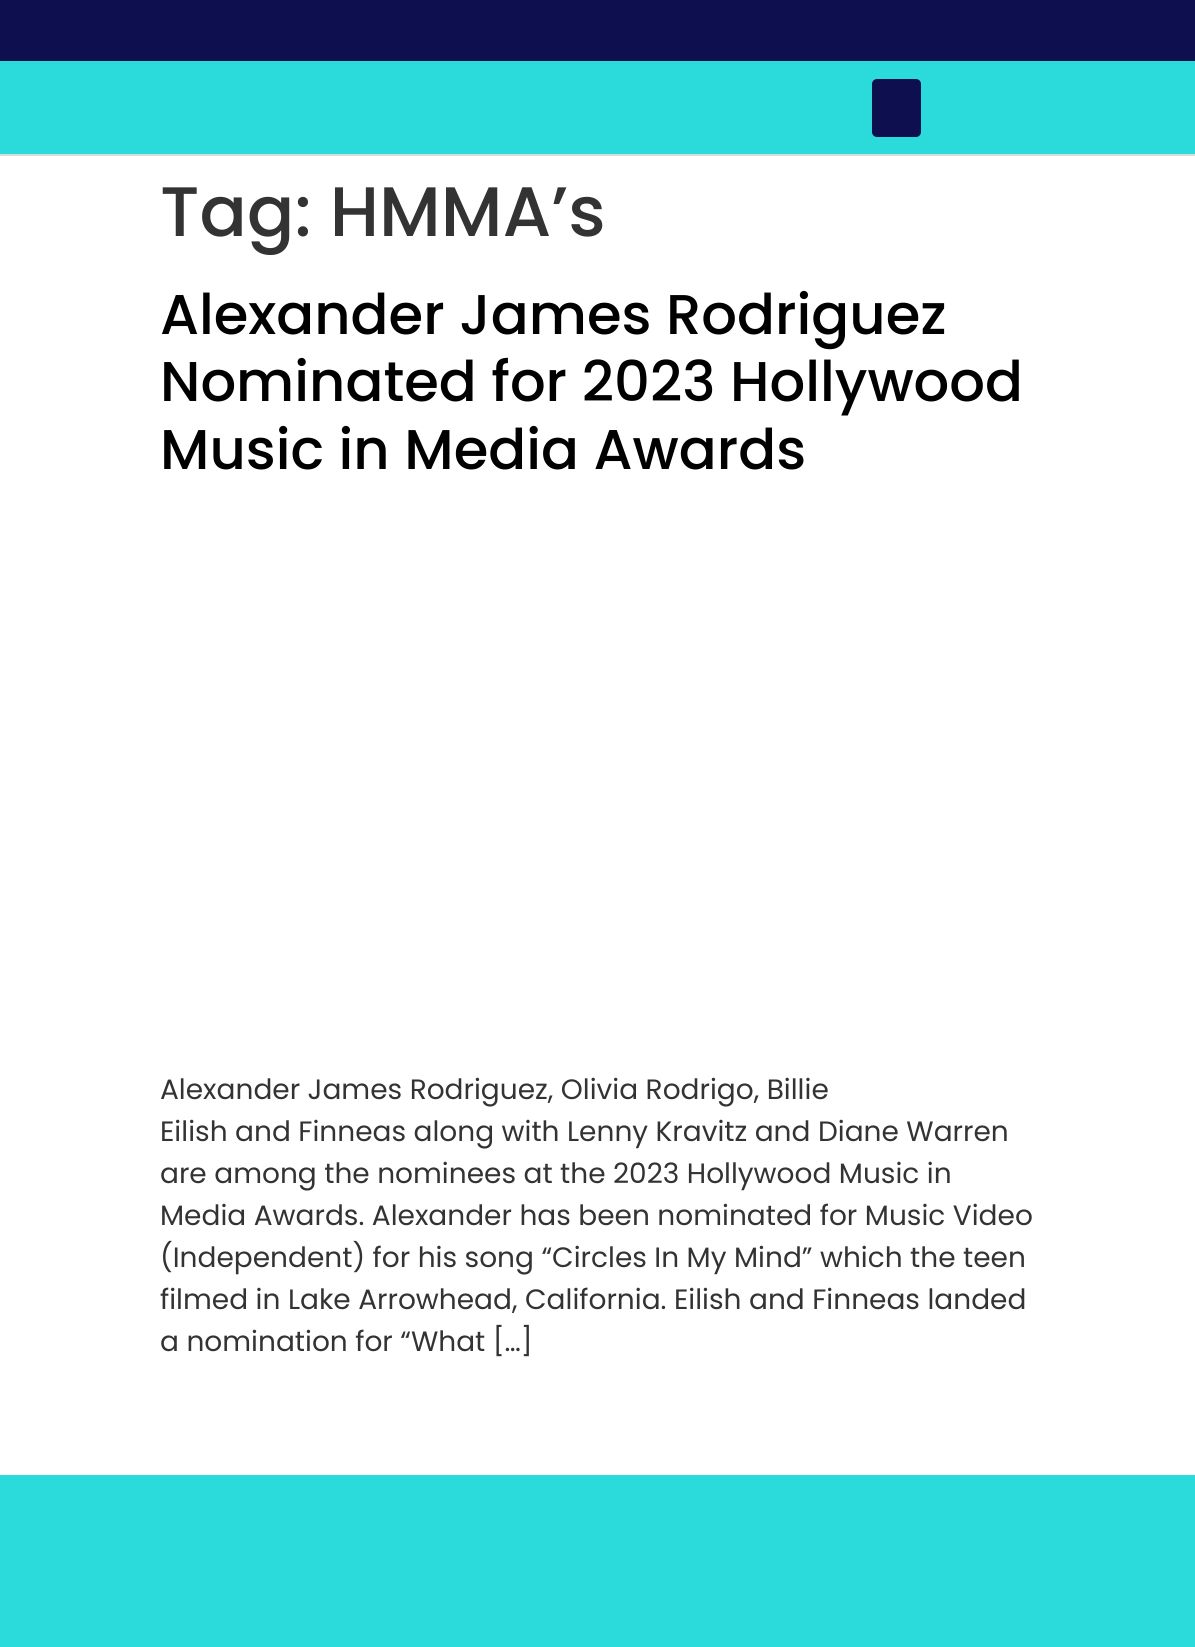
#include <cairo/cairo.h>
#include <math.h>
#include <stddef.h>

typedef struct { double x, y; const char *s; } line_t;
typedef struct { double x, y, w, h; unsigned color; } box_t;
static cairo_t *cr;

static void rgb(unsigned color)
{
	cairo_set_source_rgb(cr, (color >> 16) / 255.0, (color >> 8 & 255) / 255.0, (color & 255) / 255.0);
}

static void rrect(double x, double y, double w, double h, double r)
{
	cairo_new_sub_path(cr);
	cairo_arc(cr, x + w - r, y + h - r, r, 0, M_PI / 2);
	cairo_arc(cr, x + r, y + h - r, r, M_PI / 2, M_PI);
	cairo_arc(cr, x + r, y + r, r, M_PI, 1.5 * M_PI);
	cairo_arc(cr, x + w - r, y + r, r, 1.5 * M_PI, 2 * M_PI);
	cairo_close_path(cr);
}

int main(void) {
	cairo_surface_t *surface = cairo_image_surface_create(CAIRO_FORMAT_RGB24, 1195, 1647);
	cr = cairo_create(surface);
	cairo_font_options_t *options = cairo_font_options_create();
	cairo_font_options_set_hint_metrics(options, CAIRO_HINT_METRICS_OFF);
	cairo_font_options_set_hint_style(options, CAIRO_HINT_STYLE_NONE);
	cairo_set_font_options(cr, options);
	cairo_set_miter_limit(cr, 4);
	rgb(0xffffff);
	cairo_paint(cr);
	{
		static const box_t items[] = {
			{0, 0, 1195, 61, 0x0e0f4f},
			{0, 61, 1195, 93, 0x2bdada},
			{0, 154, 1195, 2, 0xdbdbdb},
		};
		for (size_t i = 0; i < sizeof items / sizeof *items; i++) {
			rgb(items[i].color);
			cairo_rectangle(cr, items[i].x, items[i].y, items[i].w, items[i].h);
			cairo_fill(cr);
		}
	}
	rgb(0x0e0f4f);
	rrect(872, 79, 49, 58, 5);
	cairo_fill(cr);
	rgb(0x2bdada);
	cairo_rectangle(cr, 0, 1475, 1195, 172);
	cairo_fill(cr);
	cairo_select_font_face(cr, "Poppins Medium", CAIRO_FONT_SLANT_NORMAL, CAIRO_FONT_WEIGHT_NORMAL);
	cairo_set_font_size(cr, 70);
	rgb(0x333333);
	cairo_move_to(cr, 160, 236);
	cairo_show_text(cr, "Tag: HMMA’s");
	cairo_set_font_size(cr, 56);
	rgb(0x000000);
	{
		static const line_t items[] = {
			{160, 334, "Alexander James Rodriguez"},
			{160, 401, "Nominated for 2023 Hollywood"},
			{160, 469, "Music in Media Awards"},
		};
		for (size_t i = 0; i < sizeof items / sizeof *items; i++) {
			cairo_move_to(cr, items[i].x, items[i].y);
			cairo_show_text(cr, items[i].s);
		}
	}
	cairo_select_font_face(cr, "Poppins", CAIRO_FONT_SLANT_NORMAL, CAIRO_FONT_WEIGHT_NORMAL);
	cairo_set_font_size(cr, 28);
	rgb(0x333333);
	{
		static const line_t items[] = {
			{160, 1099, "Alexander James Rodriguez, Olivia Rodrigo, Billie"},
			{160, 1141, "Eilish and Finneas along with Lenny Kravitz and Diane Warren"},
			{160, 1183, "are among the nominees at the 2023 Hollywood Music in"},
			{160, 1225, "Media Awards. Alexander has been nominated for Music Video"},
			{160, 1267, "(Independent) for his song “Circles In My Mind” which the teen"},
			{160, 1309, "filmed in Lake Arrowhead, California. Eilish and Finneas landed"},
			{160, 1351, "a nomination for “What […]"},
		};
		for (size_t i = 0; i < sizeof items / sizeof *items; i++) {
			cairo_move_to(cr, items[i].x, items[i].y);
			cairo_show_text(cr, items[i].s);
		}
	}
	cairo_surface_write_to_png(surface, "page.png");
	cairo_font_options_destroy(options);
	cairo_destroy(cr);
	cairo_surface_destroy(surface);
	return 0;
}
